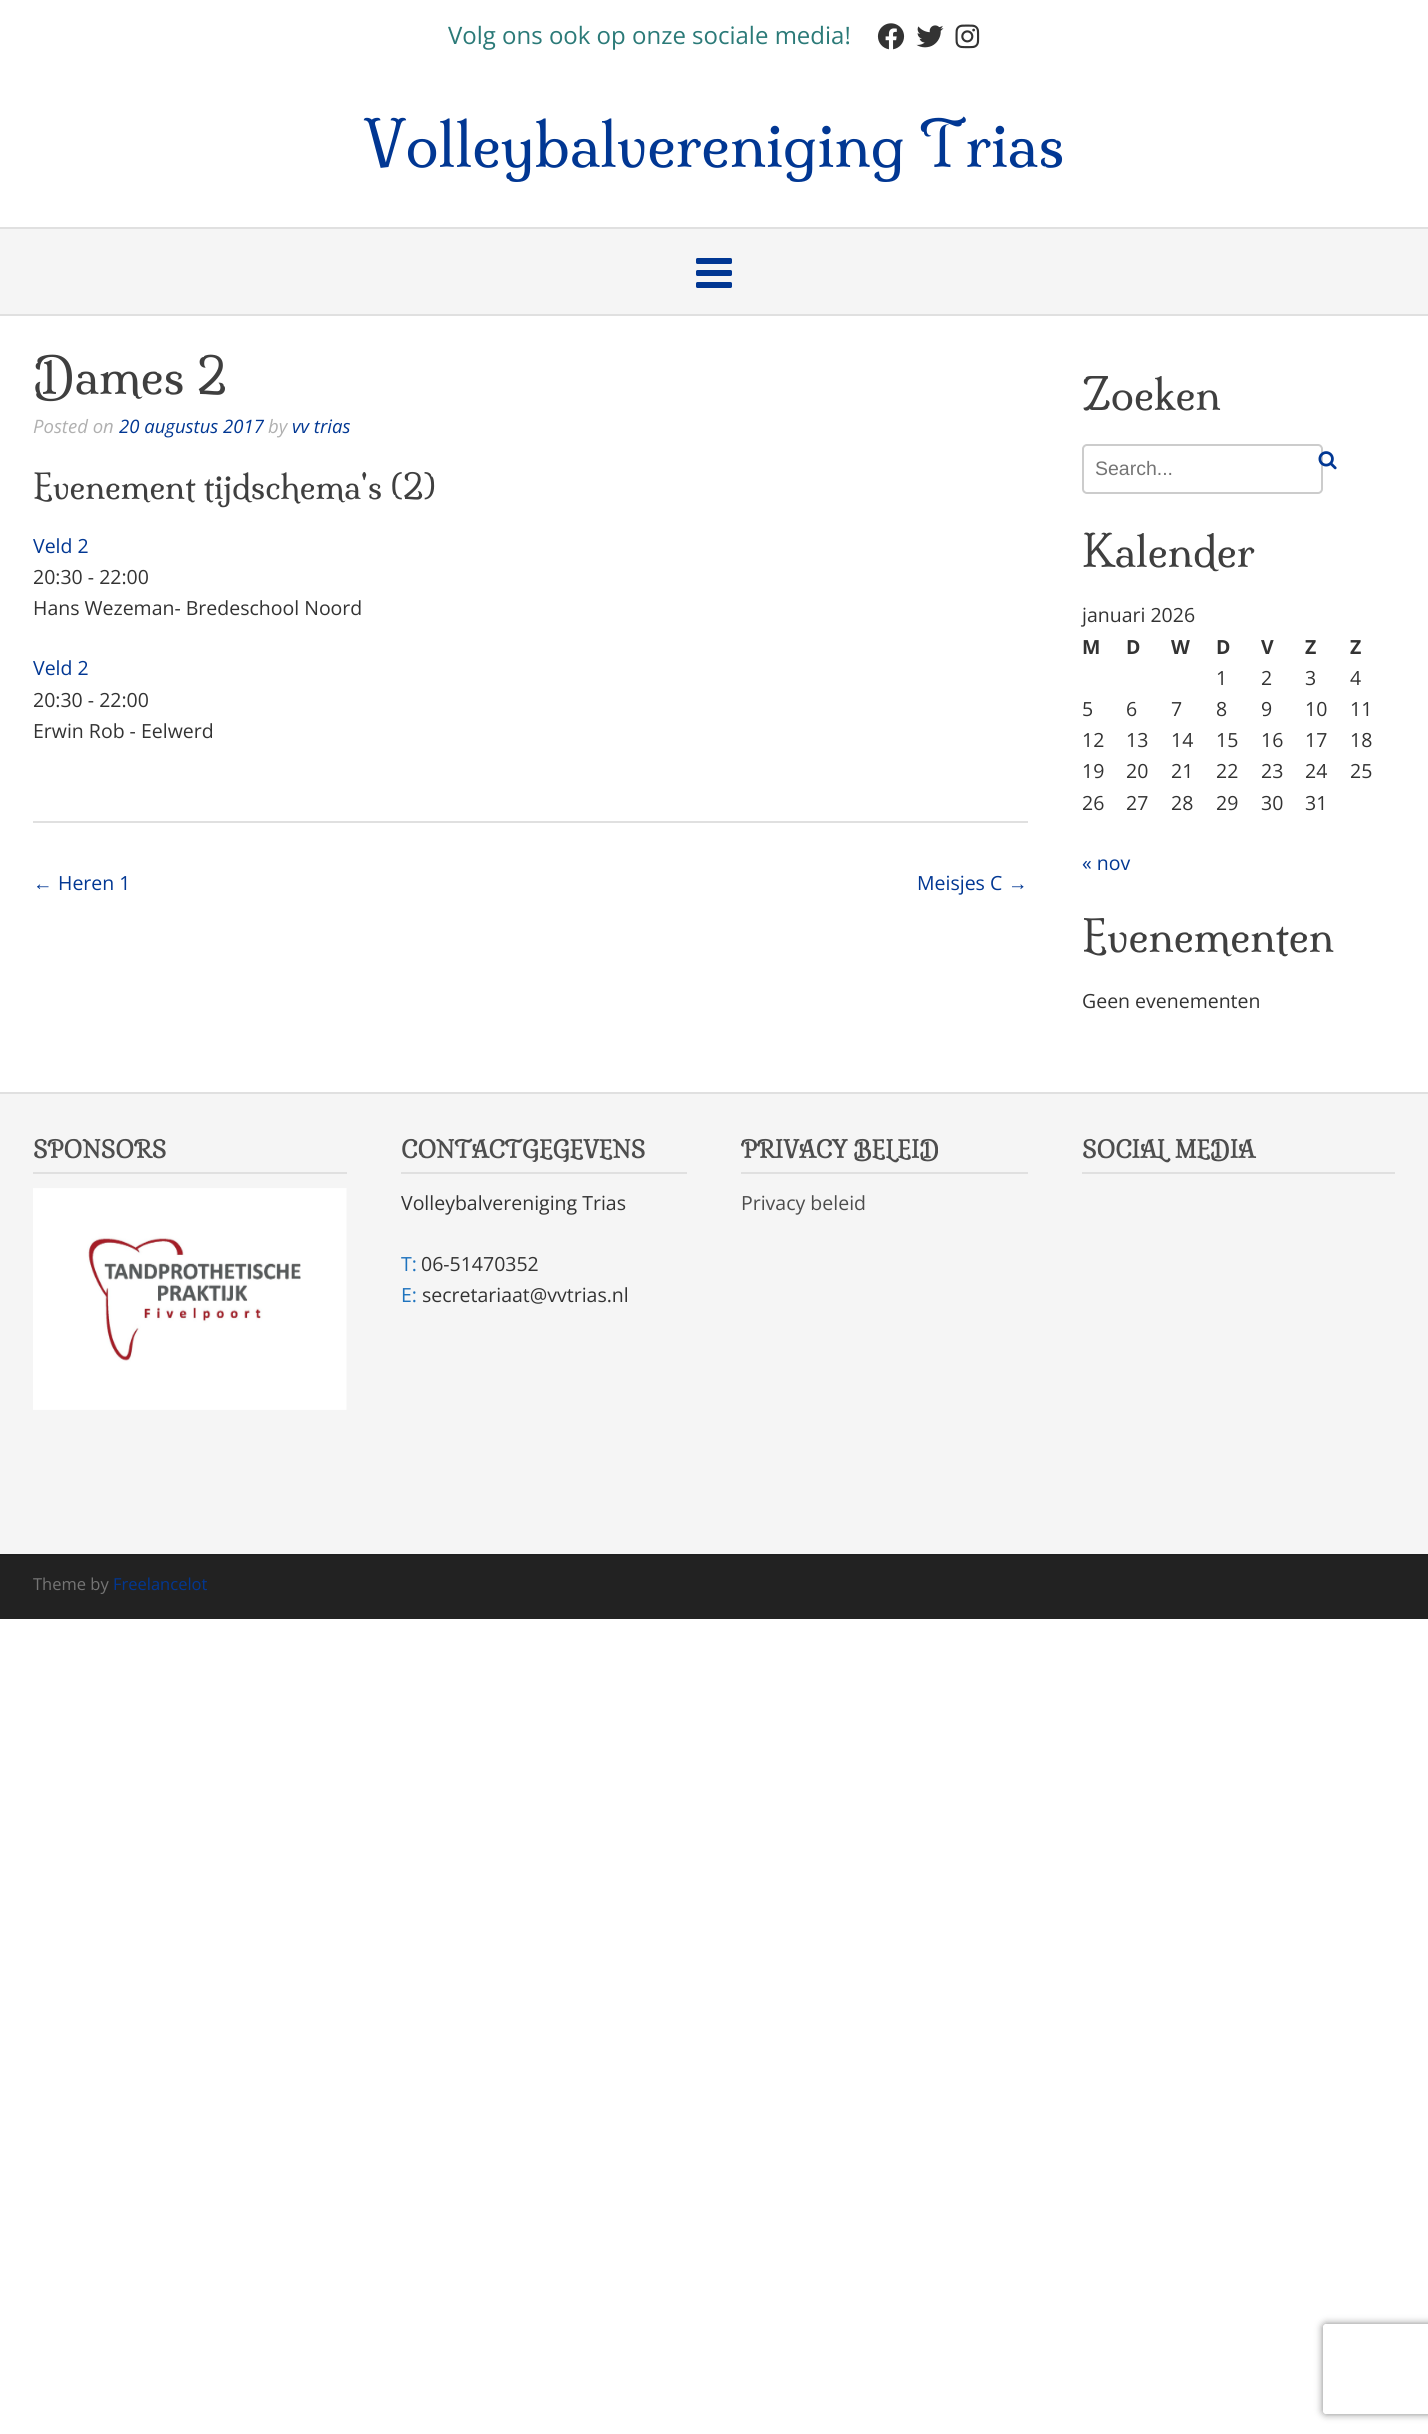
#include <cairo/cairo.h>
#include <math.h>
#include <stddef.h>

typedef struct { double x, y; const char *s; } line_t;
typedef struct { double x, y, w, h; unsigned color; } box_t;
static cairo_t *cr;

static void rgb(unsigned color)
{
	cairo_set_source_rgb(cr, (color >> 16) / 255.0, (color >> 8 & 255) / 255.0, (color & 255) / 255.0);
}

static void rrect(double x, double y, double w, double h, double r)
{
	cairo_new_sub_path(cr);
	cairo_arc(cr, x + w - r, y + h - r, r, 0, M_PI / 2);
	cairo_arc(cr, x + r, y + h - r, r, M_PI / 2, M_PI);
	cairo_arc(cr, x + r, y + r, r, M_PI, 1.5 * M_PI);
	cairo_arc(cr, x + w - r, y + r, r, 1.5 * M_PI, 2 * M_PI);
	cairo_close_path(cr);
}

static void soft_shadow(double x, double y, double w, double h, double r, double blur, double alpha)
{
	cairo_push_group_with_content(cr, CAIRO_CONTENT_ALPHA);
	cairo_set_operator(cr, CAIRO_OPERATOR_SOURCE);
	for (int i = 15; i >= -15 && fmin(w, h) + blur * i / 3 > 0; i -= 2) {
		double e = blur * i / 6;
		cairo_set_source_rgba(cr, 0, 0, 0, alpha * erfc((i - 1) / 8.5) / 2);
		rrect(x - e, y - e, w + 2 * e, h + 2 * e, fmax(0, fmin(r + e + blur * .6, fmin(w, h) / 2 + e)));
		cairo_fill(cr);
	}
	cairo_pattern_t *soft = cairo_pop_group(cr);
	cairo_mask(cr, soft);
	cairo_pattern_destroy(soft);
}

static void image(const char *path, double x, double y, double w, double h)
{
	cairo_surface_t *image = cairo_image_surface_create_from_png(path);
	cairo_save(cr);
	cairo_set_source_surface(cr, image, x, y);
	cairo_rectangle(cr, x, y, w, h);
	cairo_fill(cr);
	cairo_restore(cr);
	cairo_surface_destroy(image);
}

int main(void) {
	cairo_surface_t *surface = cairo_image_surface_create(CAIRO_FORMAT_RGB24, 1428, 2434);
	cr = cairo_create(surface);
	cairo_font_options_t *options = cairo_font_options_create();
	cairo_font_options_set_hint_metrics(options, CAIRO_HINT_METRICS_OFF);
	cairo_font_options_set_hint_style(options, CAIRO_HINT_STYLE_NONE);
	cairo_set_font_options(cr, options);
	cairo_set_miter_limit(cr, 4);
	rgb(0xffffff);
	cairo_paint(cr);
	image("img/1.png", 877, 23, 28, 27);
	image("img/2.png", 916, 25, 28, 23);
	image("img/3.png", 955, 24, 25, 25);
	{
		static const box_t items[] = {
			{0, 314, 1428, 2, 0xe0e0e0},
			{0, 229, 1428, 85, 0xf5f5f5},
			{0, 227, 1428, 2, 0xe0e0e0},
		};
		for (size_t i = 0; i < sizeof items / sizeof *items; i++) {
			rgb(items[i].color);
			cairo_rectangle(cr, items[i].x, items[i].y, items[i].w, items[i].h);
			cairo_fill(cr);
		}
	}
	image("img/4.png", 696, 258, 36, 30);
	cairo_rectangle(cr, 33, 821, 995, 2);
	cairo_fill(cr);
	rrect(1083, 445, 239, 48, 4);
	rgb(0xcccccc);
	cairo_stroke(cr);
	image("img/5.png", 1318, 451, 19, 19);
	{
		static const box_t items[] = {
			{0, 1094, 1428, 460, 0xf5f5f5},
			{0, 1092, 1428, 2, 0xe0e0e0},
			{33, 1172, 314, 2, 0xe0e0e0},
		};
		for (size_t i = 0; i < sizeof items / sizeof *items; i++) {
			rgb(items[i].color);
			cairo_rectangle(cr, items[i].x, items[i].y, items[i].w, items[i].h);
			cairo_fill(cr);
		}
	}
	image("img/6.png", 33, 1188, 314, 222);
	{
		static const box_t items[] = {
			{401, 1172, 286, 2, 0xe0e0e0},
			{741, 1172, 287, 2, 0xe0e0e0},
			{1082, 1172, 313, 2, 0xe0e0e0},
			{0, 1556, 1428, 63, 0x222222},
			{0, 1554, 1428, 2, 0x1f1f1f},
		};
		for (size_t i = 0; i < sizeof items / sizeof *items; i++) {
			rgb(items[i].color);
			cairo_rectangle(cr, items[i].x, items[i].y, items[i].w, items[i].h);
			cairo_fill(cr);
		}
	}
	cairo_save(cr);
	cairo_set_fill_rule(cr, CAIRO_FILL_RULE_EVEN_ODD);
	cairo_new_path(cr);
	cairo_move_to(cr, 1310, 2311);
	cairo_line_to(cr, 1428, 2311);
	cairo_line_to(cr, 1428, 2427);
	cairo_line_to(cr, 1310, 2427);
	cairo_close_path(cr);
	cairo_move_to(cr, 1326, 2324);
	cairo_line_to(cr, 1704, 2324);
	cairo_curve_to(cr, 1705.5, 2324, 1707, 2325.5, 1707, 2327);
	cairo_line_to(cr, 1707, 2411);
	cairo_curve_to(cr, 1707, 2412.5, 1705.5, 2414, 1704, 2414);
	cairo_line_to(cr, 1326, 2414);
	cairo_curve_to(cr, 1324.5, 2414, 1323, 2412.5, 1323, 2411);
	cairo_line_to(cr, 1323, 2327);
	cairo_curve_to(cr, 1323, 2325.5, 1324.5, 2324, 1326, 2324);
	cairo_close_path(cr);
	cairo_clip(cr);
	rgb(0x808080);
	soft_shadow(1323, 2324, 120, 90, 3, 4, 1);
	cairo_restore(cr);
	cairo_select_font_face(cr, "Open Sans", CAIRO_FONT_SLANT_NORMAL, CAIRO_FONT_WEIGHT_NORMAL);
	cairo_set_font_size(cr, 24);
	rgb(0x2b7a78);
	cairo_move_to(cr, 448, 44);
	cairo_show_text(cr, "Volg ons ook op onze sociale media!");
	cairo_select_font_face(cr, "Milonga", CAIRO_FONT_SLANT_NORMAL, CAIRO_FONT_WEIGHT_NORMAL);
	cairo_set_font_size(cr, 60);
	rgb(0x013793);
	cairo_move_to(cr, 364, 167);
	cairo_show_text(cr, "Volleybalvereniging Trias");
	cairo_set_font_size(cr, 48);
	rgb(0x3f3f3f);
	cairo_move_to(cr, 33, 394);
	cairo_show_text(cr, "Dames 2");
	cairo_select_font_face(cr, "Open Sans", CAIRO_FONT_SLANT_ITALIC, CAIRO_FONT_WEIGHT_NORMAL);
	cairo_set_font_size(cr, 18.5);
	rgb(0xb0b0b0);
	cairo_move_to(cr, 33, 433);
	cairo_show_text(cr, "Posted on");
	rgb(0x013793);
	cairo_move_to(cr, 119, 433);
	cairo_show_text(cr, "20 augustus 2017");
	rgb(0xb0b0b0);
	cairo_move_to(cr, 268, 433);
	cairo_show_text(cr, "by");
	rgb(0x013793);
	cairo_move_to(cr, 292, 433);
	cairo_show_text(cr, "vv trias");
	cairo_select_font_face(cr, "Milonga", CAIRO_FONT_SLANT_NORMAL, CAIRO_FONT_WEIGHT_NORMAL);
	cairo_set_font_size(cr, 33);
	rgb(0x3f3f3f);
	cairo_move_to(cr, 33, 499);
	cairo_show_text(cr, "Evenement tijdschema's (2)");
	cairo_select_font_face(cr, "Open Sans", CAIRO_FONT_SLANT_NORMAL, CAIRO_FONT_WEIGHT_NORMAL);
	cairo_set_font_size(cr, 19.5);
	rgb(0x013793);
	cairo_move_to(cr, 33, 553);
	cairo_show_text(cr, "Veld 2");
	rgb(0x333333);
	cairo_move_to(cr, 33, 584);
	cairo_show_text(cr, "20:30 - 22:00");
	cairo_move_to(cr, 33, 615);
	cairo_show_text(cr, "Hans Wezeman- Bredeschool Noord");
	rgb(0x013793);
	cairo_move_to(cr, 33, 675);
	cairo_show_text(cr, "Veld 2");
	rgb(0x333333);
	cairo_move_to(cr, 33, 707);
	cairo_show_text(cr, "20:30 - 22:00");
	cairo_move_to(cr, 33, 738);
	cairo_show_text(cr, "Erwin Rob - Eelwerd");
	cairo_select_font_face(cr, "Liberation Sans", CAIRO_FONT_SLANT_NORMAL, CAIRO_FONT_WEIGHT_NORMAL);
	rgb(0x013793);
	cairo_move_to(cr, 33, 890);
	cairo_show_text(cr, "←");
	cairo_select_font_face(cr, "Open Sans", CAIRO_FONT_SLANT_NORMAL, CAIRO_FONT_WEIGHT_NORMAL);
	cairo_move_to(cr, 58, 890);
	cairo_show_text(cr, "Heren 1");
	cairo_move_to(cr, 917, 890);
	cairo_show_text(cr, "Meisjes C");
	cairo_select_font_face(cr, "Liberation Sans", CAIRO_FONT_SLANT_NORMAL, CAIRO_FONT_WEIGHT_NORMAL);
	cairo_move_to(cr, 1008, 890);
	cairo_show_text(cr, "→");
	cairo_select_font_face(cr, "Milonga", CAIRO_FONT_SLANT_NORMAL, CAIRO_FONT_WEIGHT_NORMAL);
	cairo_set_font_size(cr, 42);
	rgb(0x3f3f3f);
	cairo_move_to(cr, 1082, 410);
	cairo_show_text(cr, "Zoeken");
	cairo_select_font_face(cr, "Liberation Sans", CAIRO_FONT_SLANT_NORMAL, CAIRO_FONT_WEIGHT_NORMAL);
	cairo_set_font_size(cr, 19.5);
	rgb(0x757575);
	cairo_move_to(cr, 1095, 475);
	cairo_show_text(cr, "Search...");
	cairo_select_font_face(cr, "Milonga", CAIRO_FONT_SLANT_NORMAL, CAIRO_FONT_WEIGHT_NORMAL);
	cairo_set_font_size(cr, 42);
	rgb(0x3f3f3f);
	cairo_move_to(cr, 1082, 567);
	cairo_show_text(cr, "Kalender");
	cairo_select_font_face(cr, "Open Sans", CAIRO_FONT_SLANT_NORMAL, CAIRO_FONT_WEIGHT_NORMAL);
	cairo_set_font_size(cr, 19.5);
	rgb(0x333333);
	cairo_move_to(cr, 1082, 622);
	cairo_show_text(cr, "januari 2026");
	cairo_select_font_face(cr, "Open Sans", CAIRO_FONT_SLANT_NORMAL, CAIRO_FONT_WEIGHT_BOLD);
	{
		static const line_t items[] = {
			{1082, 654, "M"},
			{1126, 654, "D"},
			{1171, 654, "W"},
			{1216, 654, "D"},
			{1261, 654, "V"},
			{1305, 654, "Z"},
			{1350, 654, "Z"},
		};
		for (size_t i = 0; i < sizeof items / sizeof *items; i++) {
			cairo_move_to(cr, items[i].x, items[i].y);
			cairo_show_text(cr, items[i].s);
		}
	}
	cairo_select_font_face(cr, "Open Sans", CAIRO_FONT_SLANT_NORMAL, CAIRO_FONT_WEIGHT_NORMAL);
	{
		static const line_t items[] = {
			{1216, 685, "1"},
			{1261, 685, "2"},
			{1305, 685, "3"},
			{1350, 685, "4"},
			{1082, 716, "5"},
			{1126, 716, "6"},
			{1171, 716, "7"},
			{1216, 716, "8"},
			{1261, 716, "9"},
			{1305, 716, "10"},
			{1350, 716, "11"},
			{1082, 747, "12"},
			{1126, 747, "13"},
			{1171, 747, "14"},
			{1216, 747, "15"},
			{1261, 747, "16"},
			{1305, 747, "17"},
			{1350, 747, "18"},
			{1082, 778, "19"},
			{1126, 778, "20"},
			{1171, 778, "21"},
			{1216, 778, "22"},
			{1261, 778, "23"},
			{1305, 778, "24"},
			{1350, 778, "25"},
			{1082, 810, "26"},
			{1126, 810, "27"},
			{1171, 810, "28"},
			{1216, 810, "29"},
			{1261, 810, "30"},
			{1305, 810, "31"},
		};
		for (size_t i = 0; i < sizeof items / sizeof *items; i++) {
			cairo_move_to(cr, items[i].x, items[i].y);
			cairo_show_text(cr, items[i].s);
		}
	}
	rgb(0x013793);
	cairo_move_to(cr, 1082, 870);
	cairo_show_text(cr, "« nov");
	cairo_select_font_face(cr, "Milonga", CAIRO_FONT_SLANT_NORMAL, CAIRO_FONT_WEIGHT_NORMAL);
	cairo_set_font_size(cr, 42);
	rgb(0x3f3f3f);
	cairo_move_to(cr, 1082, 952);
	cairo_show_text(cr, "Evenementen");
	cairo_select_font_face(cr, "Open Sans", CAIRO_FONT_SLANT_NORMAL, CAIRO_FONT_WEIGHT_NORMAL);
	cairo_set_font_size(cr, 19.5);
	rgb(0x333333);
	cairo_move_to(cr, 1082, 1008);
	cairo_show_text(cr, "Geen evenementen");
	cairo_select_font_face(cr, "Milonga", CAIRO_FONT_SLANT_NORMAL, CAIRO_FONT_WEIGHT_BOLD);
	cairo_set_font_size(cr, 22.5);
	rgb(0x4d4d4d);
	cairo_move_to(cr, 33, 1158);
	cairo_show_text(cr, "SPONSORS");
	cairo_move_to(cr, 401, 1158);
	cairo_show_text(cr, "CONTACTGEGEVENS");
	cairo_select_font_face(cr, "Open Sans", CAIRO_FONT_SLANT_NORMAL, CAIRO_FONT_WEIGHT_NORMAL);
	cairo_set_font_size(cr, 19.5);
	rgb(0x333333);
	cairo_move_to(cr, 401, 1210);
	cairo_show_text(cr, "Volleybalvereniging Trias");
	rgb(0x1e73be);
	cairo_move_to(cr, 401, 1271);
	cairo_show_text(cr, "T:");
	rgb(0x333333);
	cairo_move_to(cr, 421, 1271);
	cairo_show_text(cr, "06-51470352");
	rgb(0x1e73be);
	cairo_move_to(cr, 401, 1302);
	cairo_show_text(cr, "E:");
	rgb(0x333333);
	cairo_move_to(cr, 422, 1302);
	cairo_show_text(cr, "secretariaat@vvtrias.nl");
	cairo_select_font_face(cr, "Milonga", CAIRO_FONT_SLANT_NORMAL, CAIRO_FONT_WEIGHT_BOLD);
	cairo_set_font_size(cr, 22.5);
	rgb(0x4d4d4d);
	cairo_move_to(cr, 741, 1158);
	cairo_show_text(cr, "PRIVACY BELEID");
	cairo_select_font_face(cr, "Open Sans", CAIRO_FONT_SLANT_NORMAL, CAIRO_FONT_WEIGHT_NORMAL);
	cairo_set_font_size(cr, 19.5);
	cairo_move_to(cr, 741, 1210);
	cairo_show_text(cr, "Privacy beleid");
	cairo_select_font_face(cr, "Milonga", CAIRO_FONT_SLANT_NORMAL, CAIRO_FONT_WEIGHT_BOLD);
	cairo_set_font_size(cr, 22.5);
	cairo_move_to(cr, 1082, 1158);
	cairo_show_text(cr, "SOCIAL MEDIA");
	cairo_select_font_face(cr, "Open Sans", CAIRO_FONT_SLANT_NORMAL, CAIRO_FONT_WEIGHT_NORMAL);
	cairo_set_font_size(cr, 16.5);
	rgb(0x757575);
	cairo_move_to(cr, 33, 1590);
	cairo_show_text(cr, "Theme by");
	rgb(0x013793);
	cairo_move_to(cr, 113, 1590);
	cairo_show_text(cr, "Freelancelot");
	cairo_surface_write_to_png(surface, "page.png");
	cairo_font_options_destroy(options);
	cairo_destroy(cr);
	cairo_surface_destroy(surface);
	return 0;
}
